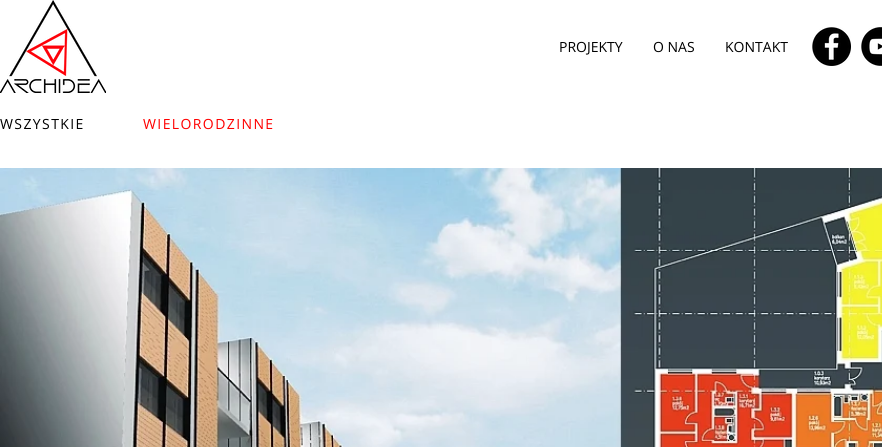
#include <cairo/cairo.h>
#include <math.h>
#include <stddef.h>

typedef struct { double x, y; const char *s; } line_t;
static cairo_t *cr;

static void rgb(unsigned color)
{
	cairo_set_source_rgb(cr, (color >> 16) / 255.0, (color >> 8 & 255) / 255.0, (color & 255) / 255.0);
}

static void tracked(double x, double y, const char *s, double letter, double word)
{
	cairo_move_to(cr, x, y);
	while (*s) {
		char ch[5] = {0};
		int n = 0;
		do ch[n++] = *s++; while ((*s & 0xC0) == 0x80);
		cairo_show_text(cr, ch);
		cairo_rel_move_to(cr, letter + word * (*ch == ' '), 0);
	}
}

static void image(const char *path, double x, double y, double w, double h)
{
	cairo_surface_t *image = cairo_image_surface_create_from_png(path);
	cairo_save(cr);
	cairo_set_source_surface(cr, image, x, y);
	cairo_rectangle(cr, x, y, w, h);
	cairo_fill(cr);
	cairo_restore(cr);
	cairo_surface_destroy(image);
}

int main(void) {
	cairo_surface_t *surface = cairo_image_surface_create(CAIRO_FORMAT_RGB24, 882, 447);
	cr = cairo_create(surface);
	cairo_font_options_t *options = cairo_font_options_create();
	cairo_font_options_set_hint_metrics(options, CAIRO_HINT_METRICS_OFF);
	cairo_font_options_set_hint_style(options, CAIRO_HINT_STYLE_NONE);
	cairo_set_font_options(cr, options);
	cairo_set_miter_limit(cr, 4);
	rgb(0xffffff);
	cairo_paint(cr);
	image("img/1.png", 0, 0, 106, 93);
	image("img/2.png", 812, 27, 39, 39);
	image("img/3.png", 861, 27, 21, 39);
	image("img/4.png", 0, 168, 882, 279);
	cairo_select_font_face(cr, "Open Sans", CAIRO_FONT_SLANT_NORMAL, CAIRO_FONT_WEIGHT_NORMAL);
	cairo_set_font_size(cr, 14);
	rgb(0x000000);
	{
		static const line_t items[] = {
			{559, 52, "PROJEKTY"},
			{653, 52, "O NAS"},
			{725, 52, "KONTAKT"},
		};
		for (size_t i = 0; i < sizeof items / sizeof *items; i++) {
			cairo_move_to(cr, items[i].x, items[i].y);
			cairo_show_text(cr, items[i].s);
		}
	}
	tracked(0, 129, "WSZYSTKIE", 1.4, 0);
	rgb(0xff0000);
	tracked(143, 129, "WIELORODZINNE", 1.4, 0);
	cairo_surface_write_to_png(surface, "page.png");
	cairo_font_options_destroy(options);
	cairo_destroy(cr);
	cairo_surface_destroy(surface);
	return 0;
}
